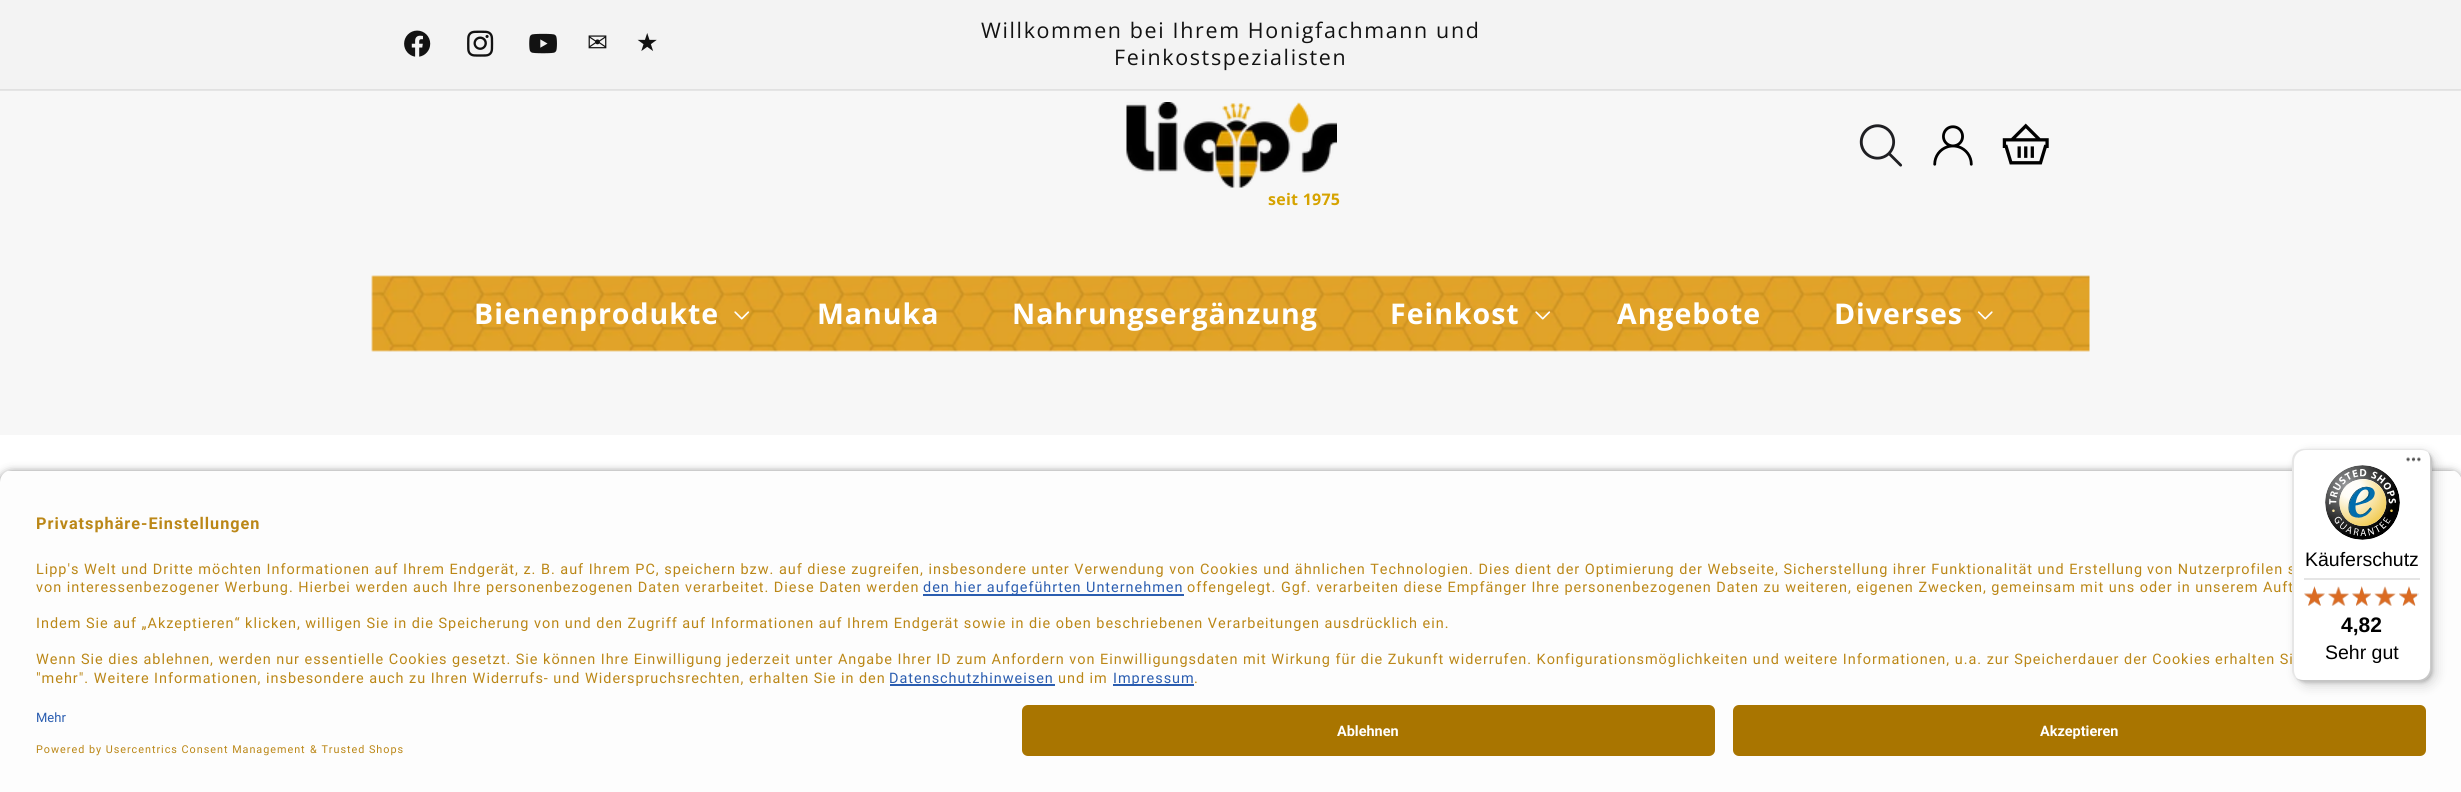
#include <cairo/cairo.h>
#include <math.h>
#include <stddef.h>

typedef struct { double x, y; const char *s; } line_t;
typedef struct { double x, y, w, h; unsigned color; } box_t;
static cairo_t *cr;

static void rgb(unsigned color)
{
	cairo_set_source_rgb(cr, (color >> 16) / 255.0, (color >> 8 & 255) / 255.0, (color & 255) / 255.0);
}

static void tracked(double x, double y, const char *s, double letter, double word)
{
	cairo_move_to(cr, x, y);
	while (*s) {
		char ch[5] = {0};
		int n = 0;
		do ch[n++] = *s++; while ((*s & 0xC0) == 0x80);
		cairo_show_text(cr, ch);
		cairo_rel_move_to(cr, letter + word * (*ch == ' '), 0);
	}
}

static void rrect(double x, double y, double w, double h, double r)
{
	cairo_new_sub_path(cr);
	cairo_arc(cr, x + w - r, y + h - r, r, 0, M_PI / 2);
	cairo_arc(cr, x + r, y + h - r, r, M_PI / 2, M_PI);
	cairo_arc(cr, x + r, y + r, r, M_PI, 1.5 * M_PI);
	cairo_arc(cr, x + w - r, y + r, r, 1.5 * M_PI, 2 * M_PI);
	cairo_close_path(cr);
}

static void soft_shadow(double x, double y, double w, double h, double r, double blur, double alpha)
{
	cairo_push_group_with_content(cr, CAIRO_CONTENT_ALPHA);
	cairo_set_operator(cr, CAIRO_OPERATOR_SOURCE);
	for (int i = 15; i >= -15 && fmin(w, h) + blur * i / 3 > 0; i -= 2) {
		double e = blur * i / 6;
		cairo_set_source_rgba(cr, 0, 0, 0, alpha * erfc((i - 1) / 8.5) / 2);
		rrect(x - e, y - e, w + 2 * e, h + 2 * e, fmax(0, fmin(r + e + blur * .6, fmin(w, h) / 2 + e)));
		cairo_fill(cr);
	}
	cairo_pattern_t *soft = cairo_pop_group(cr);
	cairo_mask(cr, soft);
	cairo_pattern_destroy(soft);
}

static void image(const char *path, double x, double y, double w, double h)
{
	cairo_surface_t *image = cairo_image_surface_create_from_png(path);
	cairo_save(cr);
	cairo_set_source_surface(cr, image, x, y);
	cairo_rectangle(cr, x, y, w, h);
	cairo_fill(cr);
	cairo_restore(cr);
	cairo_surface_destroy(image);
}

int main(void) {
	cairo_surface_t *surface = cairo_image_surface_create(CAIRO_FORMAT_RGB24, 2461, 792);
	cr = cairo_create(surface);
	cairo_font_options_t *options = cairo_font_options_create();
	cairo_font_options_set_hint_metrics(options, CAIRO_HINT_METRICS_OFF);
	cairo_font_options_set_hint_style(options, CAIRO_HINT_STYLE_NONE);
	cairo_set_font_options(cr, options);
	cairo_set_miter_limit(cr, 4);
	rgb(0xffffff);
	cairo_paint(cr);
	rgb(0xf3f3f3);
	cairo_rectangle(cr, 0, 0, 2461, 89);
	cairo_fill(cr);
	rgb(0xe1e1e1);
	cairo_rectangle(cr, 0, 89, 2461, 1);
	cairo_fill(cr);
	image("img/1.png", 404, 30, 27, 27);
	image("img/2.png", 467, 30, 27, 27);
	image("img/3.png", 529, 33, 28, 21);
	rgb(0xf7f7f7);
	cairo_rectangle(cr, 0, 91, 2461, 344);
	cairo_fill(cr);
	rgb(0xe5e5e5);
	cairo_rectangle(cr, 0, 90, 2461, 1);
	cairo_fill(cr);
	image("img/4.png", 1859, 124, 44, 43);
	image("img/5.png", 1933, 125, 40, 41);
	image("img/6.png", 2002, 123, 47, 42);
	image("img/7.png", 1126, 102, 211, 86);
	image("img/8.png", 371, 275, 1719, 77);
	image("img/9.png", 734, 311, 16, 9);
	image("img/10.png", 1535, 311, 16, 9);
	image("img/11.png", 1977, 311, 16, 9);
	rgb(0x000000);
	soft_shadow(0, 474, 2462, 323, 12, 5, 0.8);
	cairo_save(cr);
	cairo_new_path(cr);
	cairo_move_to(cr, 12, 470);
	cairo_line_to(cr, 2450, 470);
	cairo_curve_to(cr, 2456.5, 470, 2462, 475.5, 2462, 482);
	cairo_line_to(cr, 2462, 693);
	cairo_line_to(cr, 0, 693);
	cairo_line_to(cr, 0, 482);
	cairo_curve_to(cr, 0, 475.5, 5.5, 470, 12, 470);
	cairo_close_path(cr);
	cairo_clip(cr);
	rgb(0xfdfdfd);
	cairo_rectangle(cr, 0, 471, 2461, 222);
	cairo_fill(cr);
	cairo_restore(cr);
	{
		static const box_t items[] = {
			{923, 594, 261, 2, 0x2a5db0},
			{890, 684, 165, 2, 0x2a5db0},
			{1113, 684, 81, 2, 0x2a5db0},
			{0, 693, 2461, 99, 0xfdfdfd},
		};
		for (size_t i = 0; i < sizeof items / sizeof *items; i++) {
			rgb(items[i].color);
			cairo_rectangle(cr, items[i].x, items[i].y, items[i].w, items[i].h);
			cairo_fill(cr);
		}
	}
	rgb(0xa97500);
	rrect(1022, 705, 693, 51, 6);
	cairo_fill(cr);
	rrect(1733, 705, 693, 51, 6);
	cairo_fill(cr);
	rgb(0x000000);
	soft_shadow(2297, 453, 139, 233, 12, 6, 0.15);
	soft_shadow(2294, 450, 139, 233, 12, 1.5, 0.15);
	cairo_select_font_face(cr, "DejaVu Sans", CAIRO_FONT_SLANT_NORMAL, CAIRO_FONT_WEIGHT_NORMAL);
	cairo_set_font_size(cr, 25);
	rgb(0x121212);
	tracked(587, 51, "✉", 0.99, 0);
	tracked(636, 51, "★", 0.99, 0);
	cairo_select_font_face(cr, "Open Sans", CAIRO_FONT_SLANT_NORMAL, CAIRO_FONT_WEIGHT_NORMAL);
	cairo_set_font_size(cr, 21.45);
	tracked(981, 38, "Willkommen bei Ihrem Honigfachmann und", 1.65, 0);
	tracked(1114, 65, "Feinkostspezialisten", 1.65, 0);
	cairo_select_font_face(cr, "Open Sans", CAIRO_FONT_SLANT_NORMAL, CAIRO_FONT_WEIGHT_BOLD);
	cairo_set_font_size(cr, 16);
	rgb(0xd6a300);
	tracked(1268, 205, "seit 1975", 0.25, 0);
	cairo_set_font_size(cr, 28.5);
	rgb(0xffffff);
	{
		static const line_t items[] = {
			{474, 324, "Bienenprodukte"},
			{817, 324, "Manuka"},
			{1012, 324, "Nahrungsergänzung"},
			{1390, 324, "Feinkost"},
			{1617, 324, "Angebote"},
			{1834, 324, "Diverses"},
		};
		for (size_t i = 0; i < sizeof items / sizeof *items; i++) {
			tracked(items[i].x, items[i].y, items[i].s, 0.99, 0);
		}
	}
	cairo_select_font_face(cr, "Roboto", CAIRO_FONT_SLANT_NORMAL, CAIRO_FONT_WEIGHT_BOLD);
	cairo_set_font_size(cr, 16.25);
	rgb(0xbb8717);
	tracked(36, 529, "Privatsphäre-Einstellungen", 0.99, 0);
	cairo_select_font_face(cr, "Roboto", CAIRO_FONT_SLANT_NORMAL, CAIRO_FONT_WEIGHT_NORMAL);
	cairo_set_font_size(cr, 14.44);
	tracked(36, 574, "Lipp's Welt und Dritte möchten Informationen auf Ihrem Endgerät, z. B. auf Ihrem PC, speichern bzw. auf diese zugreifen, insbesondere unter Verwendung von Cookies und ähnlichen Technologien. Dies dient der Optimierung der Webseite, Sicherstellung ihrer Funktionalität und Erstellung", 0.99, 0);
	tracked(2147, 574, "von Nutzerprofilen s", 0.99, 0);
	tracked(36, 592, "von interessenbezogener Werbung. Hierbei werden auch Ihre personenbezogenen Daten verarbeitet. Diese Daten werden", 0.99, 0);
	rgb(0x2a5db0);
	tracked(923, 592, "den hier aufgeführten Unternehmen", 0.99, 0);
	rgb(0xbb8717);
	{
		static const line_t items[] = {
			{1187, 592, "offengelegt. Ggf. verarbeiten diese Empfänger Ihre personenbezogenen Daten zu weiteren, eigenen Zwecken, gemeinsam mit uns oder in unserem Auft"},
			{36, 628, "Indem Sie auf „Akzeptieren“ klicken, willigen Sie in die Speicherung von und den Zugriff auf Informationen auf Ihrem Endgerät sowie in die oben beschriebenen Verarbeitungen ausdrücklich ein."},
			{36, 664, "Wenn Sie dies ablehnen, werden nur essentielle Cookies gesetzt. Sie können Ihre Einwilligung jederzeit unter Angabe Ihrer ID zum Anfordern von Einwilligungsdaten mit Wirkung für die Zukunft widerrufen. Konfigurationsmöglichkeiten und weitere Informationen, u.a. zur Speicherdauer der Cookies"},
			{2215, 664, "erhalten Si"},
			{36, 683, "\"mehr\". Weitere Informationen, insbesondere auch zu Ihren Widerrufs- und Widerspruchsrechten, erhalten Sie in den"},
		};
		for (size_t i = 0; i < sizeof items / sizeof *items; i++) {
			tracked(items[i].x, items[i].y, items[i].s, 0.99, 0);
		}
	}
	rgb(0x2a5db0);
	tracked(889, 683, "Datenschutzhinweisen", 0.99, 0);
	rgb(0xbb8717);
	tracked(1058, 683, "und im", 0.99, 0);
	rgb(0x2a5db0);
	tracked(1113, 683, "Impressum", 0.99, 0);
	rgb(0xbb8717);
	tracked(1194, 683, ".", 0.99, 0);
	cairo_set_font_size(cr, 13);
	rgb(0x2a5db0);
	cairo_move_to(cr, 36, 722);
	cairo_show_text(cr, "Mehr");
	cairo_set_font_size(cr, 10.8);
	rgb(0xbb8717);
	tracked(36, 753, "Powered by Usercentrics Consent Management", 0.99, 0);
	tracked(310, 753, "& Trusted Shops", 0.99, 0);
	cairo_select_font_face(cr, "Roboto", CAIRO_FONT_SLANT_NORMAL, CAIRO_FONT_WEIGHT_BOLD);
	cairo_set_font_size(cr, 14.44);
	rgb(0xffffff);
	cairo_move_to(cr, 1337, 736);
	cairo_show_text(cr, "Ablehnen");
	cairo_move_to(cr, 2040, 736);
	cairo_show_text(cr, "Akzeptieren");
	rrect(2292, 449, 140, 232, 12);
	cairo_fill(cr);
	cairo_set_source_rgba(cr, 0, 0, 0, 0.1);
	cairo_new_path(cr);
	cairo_move_to(cr, 2306, 450);
	cairo_line_to(cr, 2421, 450);
	cairo_curve_to(cr, 2424, 450, 2426, 451, 2428, 452);
	cairo_curve_to(cr, 2426, 450, 2423, 449, 2420, 449);
	cairo_line_to(cr, 2304, 449);
	cairo_curve_to(cr, 2297, 449, 2292, 454, 2292, 461);
	cairo_line_to(cr, 2292, 669);
	cairo_curve_to(cr, 2292, 674, 2295, 678, 2299, 680);
	cairo_curve_to(cr, 2296, 678, 2294, 674, 2294, 670);
	cairo_line_to(cr, 2294, 462);
	cairo_curve_to(cr, 2294, 455, 2299, 450, 2306, 450);
	cairo_close_path(cr);
	cairo_fill(cr);
	cairo_set_source_rgba(cr, 0, 0, 0, 0.2);
	cairo_new_path(cr);
	cairo_move_to(cr, 2297, 678);
	cairo_curve_to(cr, 2299, 680, 2301, 681, 2304, 681);
	cairo_line_to(cr, 2420, 681);
	cairo_curve_to(cr, 2427, 681, 2432, 676, 2432, 669);
	cairo_line_to(cr, 2432, 461);
	cairo_curve_to(cr, 2432, 457, 2430, 454, 2428, 452);
	cairo_curve_to(cr, 2429, 454, 2430, 456, 2430, 459);
	cairo_line_to(cr, 2430, 668);
	cairo_curve_to(cr, 2430, 674, 2425, 680, 2418, 680);
	cairo_line_to(cr, 2302, 680);
	cairo_curve_to(cr, 2300, 680, 2298, 679, 2297, 678);
	cairo_close_path(cr);
	cairo_fill(cr);
	cairo_set_source_rgba(cr, 0.196, 0.196, 0.196, 0.2);
	cairo_new_path(cr);
	cairo_move_to(cr, 2296, 678);
	cairo_curve_to(cr, 2298, 680, 2301, 681, 2304, 681);
	cairo_line_to(cr, 2420, 681);
	cairo_curve_to(cr, 2427, 681, 2432, 676, 2432, 669);
	cairo_line_to(cr, 2432, 461);
	cairo_curve_to(cr, 2432, 457, 2430, 454, 2428, 452);
	cairo_curve_to(cr, 2430, 454, 2431, 457, 2431, 460);
	cairo_line_to(cr, 2431, 668);
	cairo_curve_to(cr, 2431, 675, 2425, 680, 2419, 680);
	cairo_line_to(cr, 2303, 680);
	cairo_curve_to(cr, 2300, 680, 2298, 679, 2296, 678);
	cairo_close_path(cr);
	cairo_fill(cr);
	cairo_set_source_rgba(cr, 1, 1, 1, 0.3);
	cairo_new_path(cr);
	cairo_move_to(cr, 2295, 677);
	cairo_curve_to(cr, 2297, 679, 2300, 681, 2304, 681);
	cairo_line_to(cr, 2420, 681);
	cairo_curve_to(cr, 2427, 681, 2432, 676, 2432, 669);
	cairo_line_to(cr, 2432, 461);
	cairo_curve_to(cr, 2432, 457, 2430, 454, 2428, 452);
	cairo_curve_to(cr, 2430, 454, 2431, 457, 2431, 460);
	cairo_line_to(cr, 2431, 668);
	cairo_curve_to(cr, 2431, 675, 2425, 680, 2419, 680);
	cairo_line_to(cr, 2303, 680);
	cairo_curve_to(cr, 2300, 680, 2297, 679, 2295, 677);
	cairo_close_path(cr);
	cairo_fill(cr);
	image("img/12.png", 2406, 457, 15, 5);
	image("img/13.png", 2325, 465, 75, 75);
	cairo_select_font_face(cr, "Liberation Sans", CAIRO_FONT_SLANT_NORMAL, CAIRO_FONT_WEIGHT_NORMAL);
	cairo_set_font_size(cr, 19.5);
	rgb(0x000000);
	cairo_move_to(cr, 2305, 566);
	cairo_show_text(cr, "Käuferschutz");
	rgb(0xe5e5e5);
	cairo_rectangle(cr, 2304, 578, 116, 2);
	cairo_fill(cr);
	image("img/14.png", 2304, 586, 21, 20);
	image("img/15.png", 2328, 587, 21, 19);
	image("img/16.png", 2352, 586, 19, 20);
	image("img/17.png", 2375, 587, 20, 19);
	image("img/18.png", 2399, 586, 20, 20);
	image("img/19.png", 2304, 586, 21, 20);
	image("img/20.png", 2328, 586, 21, 20);
	image("img/21.png", 2352, 586, 19, 20);
	image("img/22.png", 2374, 586, 22, 20);
	image("img/23.png", 2399, 586, 18, 20);
	cairo_select_font_face(cr, "Liberation Sans", CAIRO_FONT_SLANT_NORMAL, CAIRO_FONT_WEIGHT_BOLD);
	cairo_set_font_size(cr, 21);
	rgb(0x000000);
	cairo_move_to(cr, 2341, 632);
	cairo_show_text(cr, "4,82");
	cairo_select_font_face(cr, "Liberation Sans", CAIRO_FONT_SLANT_NORMAL, CAIRO_FONT_WEIGHT_NORMAL);
	cairo_set_font_size(cr, 19.5);
	cairo_move_to(cr, 2325, 659);
	cairo_show_text(cr, "Sehr gut");
	cairo_surface_write_to_png(surface, "page.png");
	cairo_font_options_destroy(options);
	cairo_destroy(cr);
	cairo_surface_destroy(surface);
	return 0;
}
